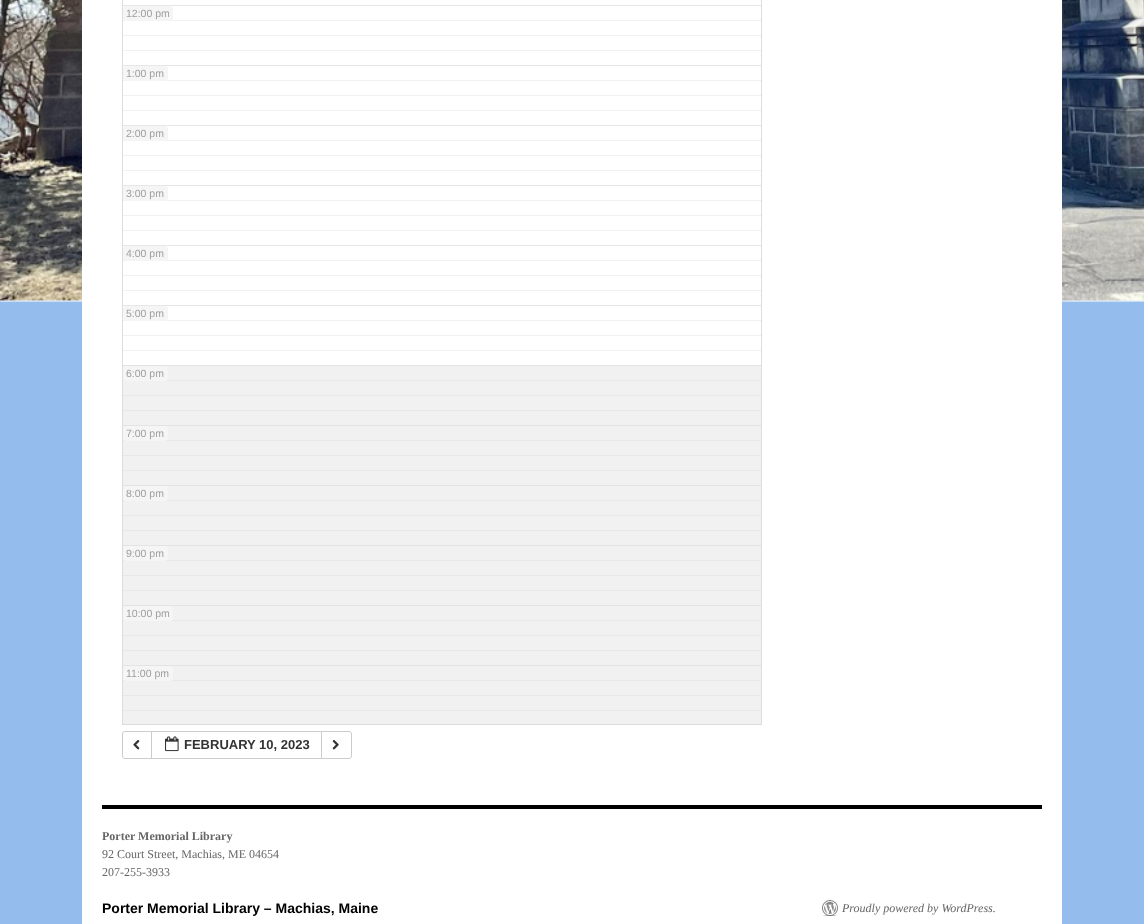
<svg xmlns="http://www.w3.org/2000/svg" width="1144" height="924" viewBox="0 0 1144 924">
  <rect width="100%" height="100%" fill="#ffffff"/>
  <image x="0" y="0" width="1144" height="924" href="img1.png"/>
  <rect x="82" y="0" width="980" height="924" fill="#ffffff"/>
  <rect x="122" y="724" width="640" height="1" fill="#dddddd"/>
  <rect x="761" y="0" width="1" height="724" fill="#dddddd"/>
  <rect x="122" y="0" width="1" height="724" fill="#dddddd"/>
  <rect x="122" y="5" width="640" height="1" fill="#dddddd" fill-opacity="0.7"/>
  <rect x="122" y="20" width="640" height="1" fill="#dddddd" fill-opacity="0.4"/>
  <rect x="123" y="6" width="50" height="15" rx="3" fill="#f5f5f5"/>
  <text x="126" y="17" font-family="Liberation Sans" font-size="10.5" fill="#9e9e9e">12:00 pm</text>
  <rect x="122" y="35" width="640" height="1" fill="#dddddd" fill-opacity="0.4"/>
  <rect x="122" y="50" width="640" height="1" fill="#dddddd" fill-opacity="0.4"/>
  <rect x="122" y="65" width="640" height="1" fill="#dddddd" fill-opacity="0.7"/>
  <rect x="122" y="80" width="640" height="1" fill="#dddddd" fill-opacity="0.4"/>
  <rect x="123" y="66" width="45" height="15" rx="3" fill="#f5f5f5"/>
  <text x="126" y="77" font-family="Liberation Sans" font-size="10.5" fill="#9e9e9e">1:00 pm</text>
  <rect x="122" y="95" width="640" height="1" fill="#dddddd" fill-opacity="0.4"/>
  <rect x="122" y="110" width="640" height="1" fill="#dddddd" fill-opacity="0.4"/>
  <rect x="122" y="125" width="640" height="1" fill="#dddddd" fill-opacity="0.7"/>
  <rect x="122" y="140" width="640" height="1" fill="#dddddd" fill-opacity="0.4"/>
  <rect x="123" y="126" width="45" height="15" rx="3" fill="#f5f5f5"/>
  <text x="126" y="137" font-family="Liberation Sans" font-size="10.5" fill="#9e9e9e">2:00 pm</text>
  <rect x="122" y="155" width="640" height="1" fill="#dddddd" fill-opacity="0.4"/>
  <rect x="122" y="170" width="640" height="1" fill="#dddddd" fill-opacity="0.4"/>
  <rect x="122" y="185" width="640" height="1" fill="#dddddd" fill-opacity="0.7"/>
  <rect x="122" y="200" width="640" height="1" fill="#dddddd" fill-opacity="0.4"/>
  <rect x="123" y="186" width="45" height="15" rx="3" fill="#f5f5f5"/>
  <text x="126" y="197" font-family="Liberation Sans" font-size="10.5" fill="#9e9e9e">3:00 pm</text>
  <rect x="122" y="215" width="640" height="1" fill="#dddddd" fill-opacity="0.4"/>
  <rect x="122" y="230" width="640" height="1" fill="#dddddd" fill-opacity="0.4"/>
  <rect x="122" y="245" width="640" height="1" fill="#dddddd" fill-opacity="0.7"/>
  <rect x="122" y="260" width="640" height="1" fill="#dddddd" fill-opacity="0.4"/>
  <rect x="123" y="246" width="45" height="15" rx="3" fill="#f5f5f5"/>
  <text x="126" y="257" font-family="Liberation Sans" font-size="10.5" fill="#9e9e9e">4:00 pm</text>
  <rect x="122" y="275" width="640" height="1" fill="#dddddd" fill-opacity="0.4"/>
  <rect x="122" y="290" width="640" height="1" fill="#dddddd" fill-opacity="0.4"/>
  <rect x="122" y="305" width="640" height="1" fill="#dddddd" fill-opacity="0.7"/>
  <rect x="122" y="320" width="640" height="1" fill="#dddddd" fill-opacity="0.4"/>
  <rect x="123" y="306" width="45" height="15" rx="3" fill="#f5f5f5"/>
  <text x="126" y="317" font-family="Liberation Sans" font-size="10.5" fill="#9e9e9e">5:00 pm</text>
  <rect x="122" y="335" width="640" height="1" fill="#dddddd" fill-opacity="0.4"/>
  <rect x="122" y="350" width="640" height="1" fill="#dddddd" fill-opacity="0.4"/>
  <rect x="123" y="365" width="638" height="60" fill="#dddddd" fill-opacity="0.4"/>
  <rect x="122" y="365" width="640" height="1" fill="#dddddd" fill-opacity="0.7"/>
  <rect x="122" y="380" width="640" height="1" fill="#dddddd" fill-opacity="0.4"/>
  <rect x="123" y="366" width="45" height="15" rx="3" fill="#f5f5f5"/>
  <text x="126" y="377" font-family="Liberation Sans" font-size="10.5" fill="#9e9e9e">6:00 pm</text>
  <rect x="122" y="395" width="640" height="1" fill="#dddddd" fill-opacity="0.4"/>
  <rect x="122" y="410" width="640" height="1" fill="#dddddd" fill-opacity="0.4"/>
  <rect x="123" y="425" width="638" height="60" fill="#dddddd" fill-opacity="0.4"/>
  <rect x="122" y="425" width="640" height="1" fill="#dddddd" fill-opacity="0.7"/>
  <rect x="122" y="440" width="640" height="1" fill="#dddddd" fill-opacity="0.4"/>
  <rect x="123" y="426" width="45" height="15" rx="3" fill="#f5f5f5"/>
  <text x="126" y="437" font-family="Liberation Sans" font-size="10.5" fill="#9e9e9e">7:00 pm</text>
  <rect x="122" y="455" width="640" height="1" fill="#dddddd" fill-opacity="0.4"/>
  <rect x="122" y="470" width="640" height="1" fill="#dddddd" fill-opacity="0.4"/>
  <rect x="123" y="485" width="638" height="60" fill="#dddddd" fill-opacity="0.4"/>
  <rect x="122" y="485" width="640" height="1" fill="#dddddd" fill-opacity="0.7"/>
  <rect x="122" y="500" width="640" height="1" fill="#dddddd" fill-opacity="0.4"/>
  <rect x="123" y="486" width="45" height="15" rx="3" fill="#f5f5f5"/>
  <text x="126" y="497" font-family="Liberation Sans" font-size="10.5" fill="#9e9e9e">8:00 pm</text>
  <rect x="122" y="515" width="640" height="1" fill="#dddddd" fill-opacity="0.4"/>
  <rect x="122" y="530" width="640" height="1" fill="#dddddd" fill-opacity="0.4"/>
  <rect x="123" y="545" width="638" height="60" fill="#dddddd" fill-opacity="0.4"/>
  <rect x="122" y="545" width="640" height="1" fill="#dddddd" fill-opacity="0.7"/>
  <rect x="122" y="560" width="640" height="1" fill="#dddddd" fill-opacity="0.4"/>
  <rect x="123" y="546" width="45" height="15" rx="3" fill="#f5f5f5"/>
  <text x="126" y="557" font-family="Liberation Sans" font-size="10.5" fill="#9e9e9e">9:00 pm</text>
  <rect x="122" y="575" width="640" height="1" fill="#dddddd" fill-opacity="0.4"/>
  <rect x="122" y="590" width="640" height="1" fill="#dddddd" fill-opacity="0.4"/>
  <rect x="123" y="605" width="638" height="60" fill="#dddddd" fill-opacity="0.4"/>
  <rect x="122" y="605" width="640" height="1" fill="#dddddd" fill-opacity="0.7"/>
  <rect x="122" y="620" width="640" height="1" fill="#dddddd" fill-opacity="0.4"/>
  <rect x="123" y="606" width="50" height="15" rx="3" fill="#f5f5f5"/>
  <text x="126" y="617" font-family="Liberation Sans" font-size="10.5" fill="#9e9e9e">10:00 pm</text>
  <rect x="122" y="635" width="640" height="1" fill="#dddddd" fill-opacity="0.4"/>
  <rect x="122" y="650" width="640" height="1" fill="#dddddd" fill-opacity="0.4"/>
  <rect x="123" y="665" width="638" height="59" fill="#dddddd" fill-opacity="0.4"/>
  <rect x="122" y="665" width="640" height="1" fill="#dddddd" fill-opacity="0.7"/>
  <rect x="122" y="680" width="640" height="1" fill="#dddddd" fill-opacity="0.4"/>
  <rect x="123" y="666" width="50" height="15" rx="3" fill="#f5f5f5"/>
  <text x="126" y="677" font-family="Liberation Sans" font-size="10.5" fill="#9e9e9e">11:00 pm</text>
  <rect x="122" y="695" width="640" height="1" fill="#dddddd" fill-opacity="0.4"/>
  <rect x="122" y="710" width="640" height="1" fill="#dddddd" fill-opacity="0.4"/>
  <path d="M125 731.5H151.5V758.5H125C123.5 758.5 122.5 757.5 122.5 756V734C122.5 732.5 123.5 731.5 125 731.5Z" fill="none" stroke="#cccccc"/>
  <image x="133" y="740" width="7" height="10" href="img2.png"/>
  <rect x="151.5" y="731.5" width="170" height="27" fill="none" stroke="#cccccc"/>
  <image x="165" y="736" width="14" height="16" href="img3.png"/>
  <text x="184" y="749" font-family="Liberation Sans" font-size="13" font-weight="bold" fill="#333333">FEBRUARY 10, 2023</text>
  <path d="M321.5 731.5H349C350.5 731.5 351.5 732.5 351.5 734V756C351.5 757.5 350.5 758.5 349 758.5H321.5Z" fill="#ffffff" stroke="#cccccc"/>
  <image x="332" y="740" width="7" height="10" href="img4.png"/>
  <rect x="102" y="805" width="940" height="4" fill="#000000"/>
  <text x="102" y="840" font-family="Liberation Serif" font-size="12" font-weight="bold" fill="#666666">Porter Memorial Library</text>
  <text x="102" y="858" font-family="Liberation Serif" font-size="12" fill="#666666">92 Court Street, Machias, ME 04654</text>
  <text x="102" y="876" font-family="Liberation Serif" font-size="12" fill="#666666">207-255-3933</text>
  <text x="102" y="913" font-family="Liberation Sans" font-size="14" font-weight="bold" fill="#000000">Porter Memorial Library – Machias, Maine</text>
  <image x="822" y="900" width="16" height="16" href="img5.png"/>
  <text x="842" y="912" font-family="Liberation Serif" font-size="12" font-style="italic" fill="#666666">Proudly powered by WordPress.</text>
</svg>
